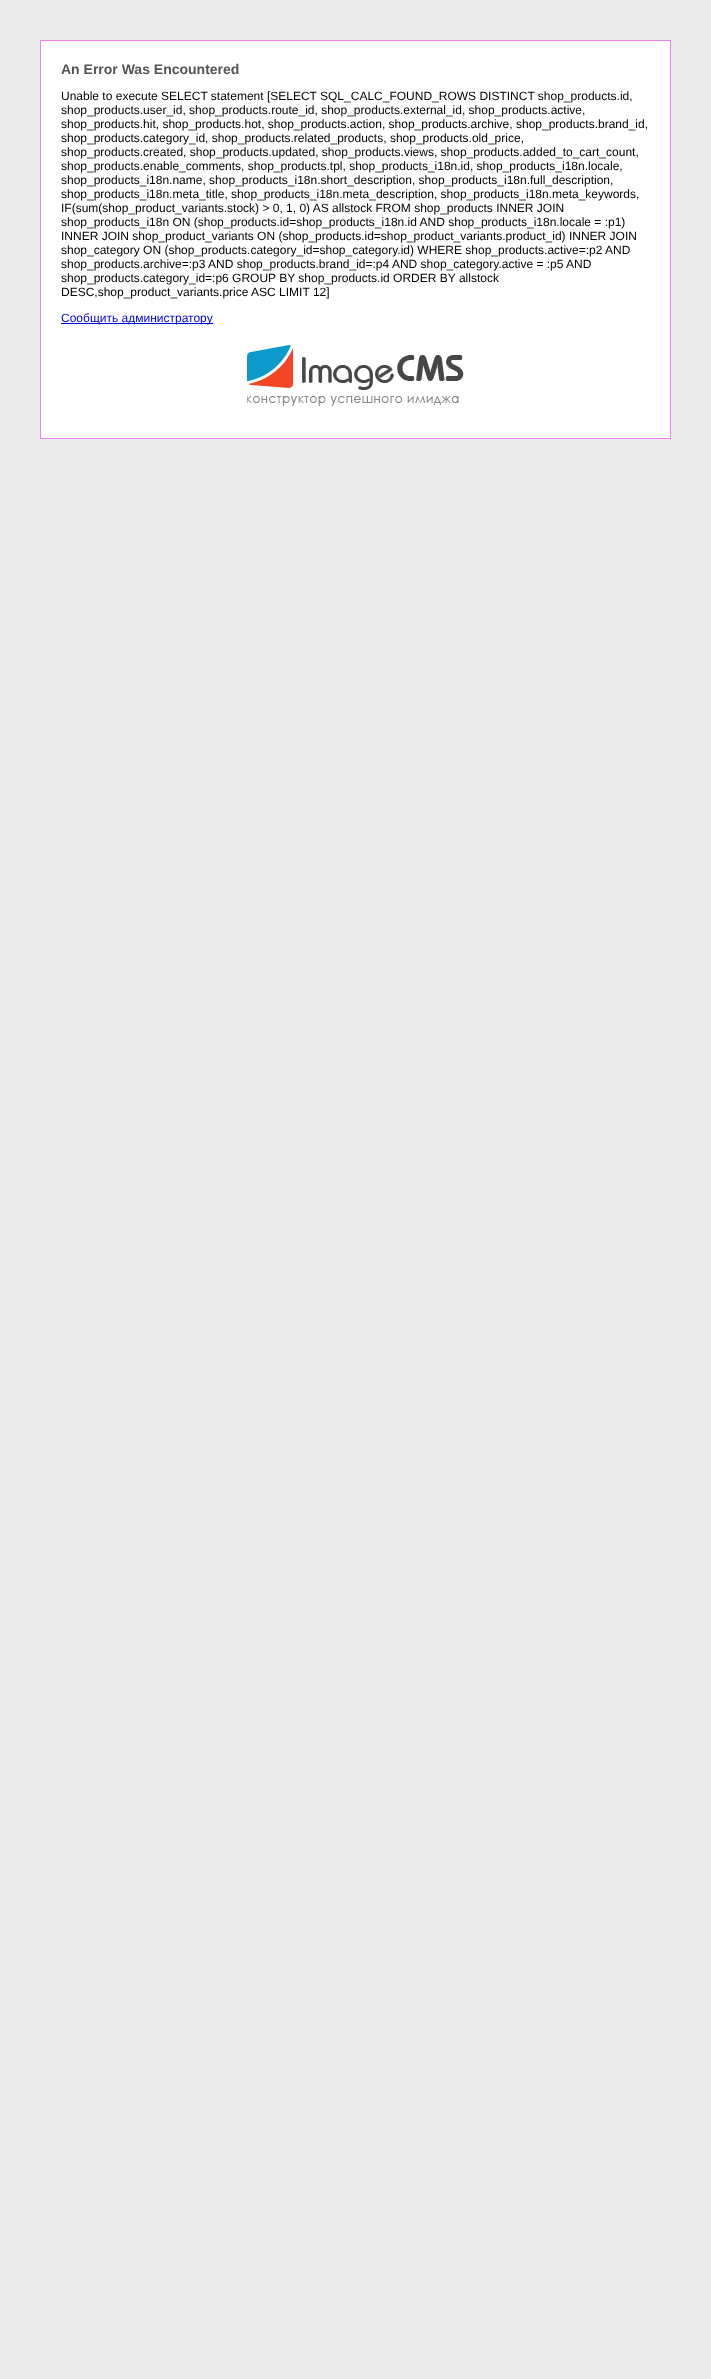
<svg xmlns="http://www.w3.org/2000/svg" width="711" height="2379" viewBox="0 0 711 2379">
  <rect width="100%" height="100%" fill="#ebebeb"/>
  <rect x="40.5" y="40.5" width="630" height="398" fill="#ffffff" stroke="#ee82ee"/>
  <text x="61" y="74" font-family="Liberation Sans" font-size="14" font-weight="bold" fill="#545454">An Error Was Encountered</text>
  <text x="61" y="100" font-family="Liberation Sans" font-size="12" fill="#000000">Unable to execute SELECT statement [SELECT SQL_CALC_FOUND_ROWS DISTINCT shop_products.id,</text>
  <text x="61" y="114" font-family="Liberation Sans" font-size="12" fill="#000000">shop_products.user_id, shop_products.route_id, shop_products.external_id, shop_products.active,</text>
  <text x="61" y="128" font-family="Liberation Sans" font-size="12" fill="#000000">shop_products.hit, shop_products.hot, shop_products.action, shop_products.archive, shop_products.brand_id,</text>
  <text x="61" y="142" font-family="Liberation Sans" font-size="12" fill="#000000">shop_products.category_id, shop_products.related_products, shop_products.old_price,</text>
  <text x="61" y="156" font-family="Liberation Sans" font-size="12" fill="#000000">shop_products.created, shop_products.updated, shop_products.views, shop_products.added_to_cart_count,</text>
  <text x="61" y="170" font-family="Liberation Sans" font-size="12" fill="#000000">shop_products.enable_comments, shop_products.tpl, shop_products_i18n.id, shop_products_i18n.locale,</text>
  <text x="61" y="184" font-family="Liberation Sans" font-size="12" fill="#000000">shop_products_i18n.name, shop_products_i18n.short_description, shop_products_i18n.full_description,</text>
  <text x="61" y="198" font-family="Liberation Sans" font-size="12" fill="#000000">shop_products_i18n.meta_title, shop_products_i18n.meta_description, shop_products_i18n.meta_keywords,</text>
  <text x="61" y="212" font-family="Liberation Sans" font-size="12" fill="#000000">IF(sum(shop_product_variants.stock) &gt; 0, 1, 0) AS allstock FROM shop_products INNER JOIN</text>
  <text x="61" y="226" font-family="Liberation Sans" font-size="12" fill="#000000">shop_products_i18n ON (shop_products.id=shop_products_i18n.id AND shop_products_i18n.locale = :p1)</text>
  <text x="61" y="240" font-family="Liberation Sans" font-size="12" fill="#000000">INNER JOIN shop_product_variants ON (shop_products.id=shop_product_variants.product_id) INNER JOIN</text>
  <text x="61" y="254" font-family="Liberation Sans" font-size="12" fill="#000000">shop_category ON (shop_products.category_id=shop_category.id) WHERE shop_products.active=:p2 AND</text>
  <text x="61" y="268" font-family="Liberation Sans" font-size="12" fill="#000000">shop_products.archive=:p3 AND shop_products.brand_id=:p4 AND shop_category.active = :p5 AND</text>
  <text x="61" y="282" font-family="Liberation Sans" font-size="12" fill="#000000">shop_products.category_id=:p6 GROUP BY shop_products.id ORDER BY allstock</text>
  <text x="61" y="296" font-family="Liberation Sans" font-size="12" fill="#000000">DESC,shop_product_variants.price ASC LIMIT 12]</text>
  <rect x="61" y="323" width="152" height="1" fill="#0000ee"/>
  <text x="61" y="322" font-family="Liberation Sans" font-size="12" fill="#0000ee">Сообщить администратору</text>
  <image x="247" y="345" width="217" height="61" href="img1.png"/>
</svg>
